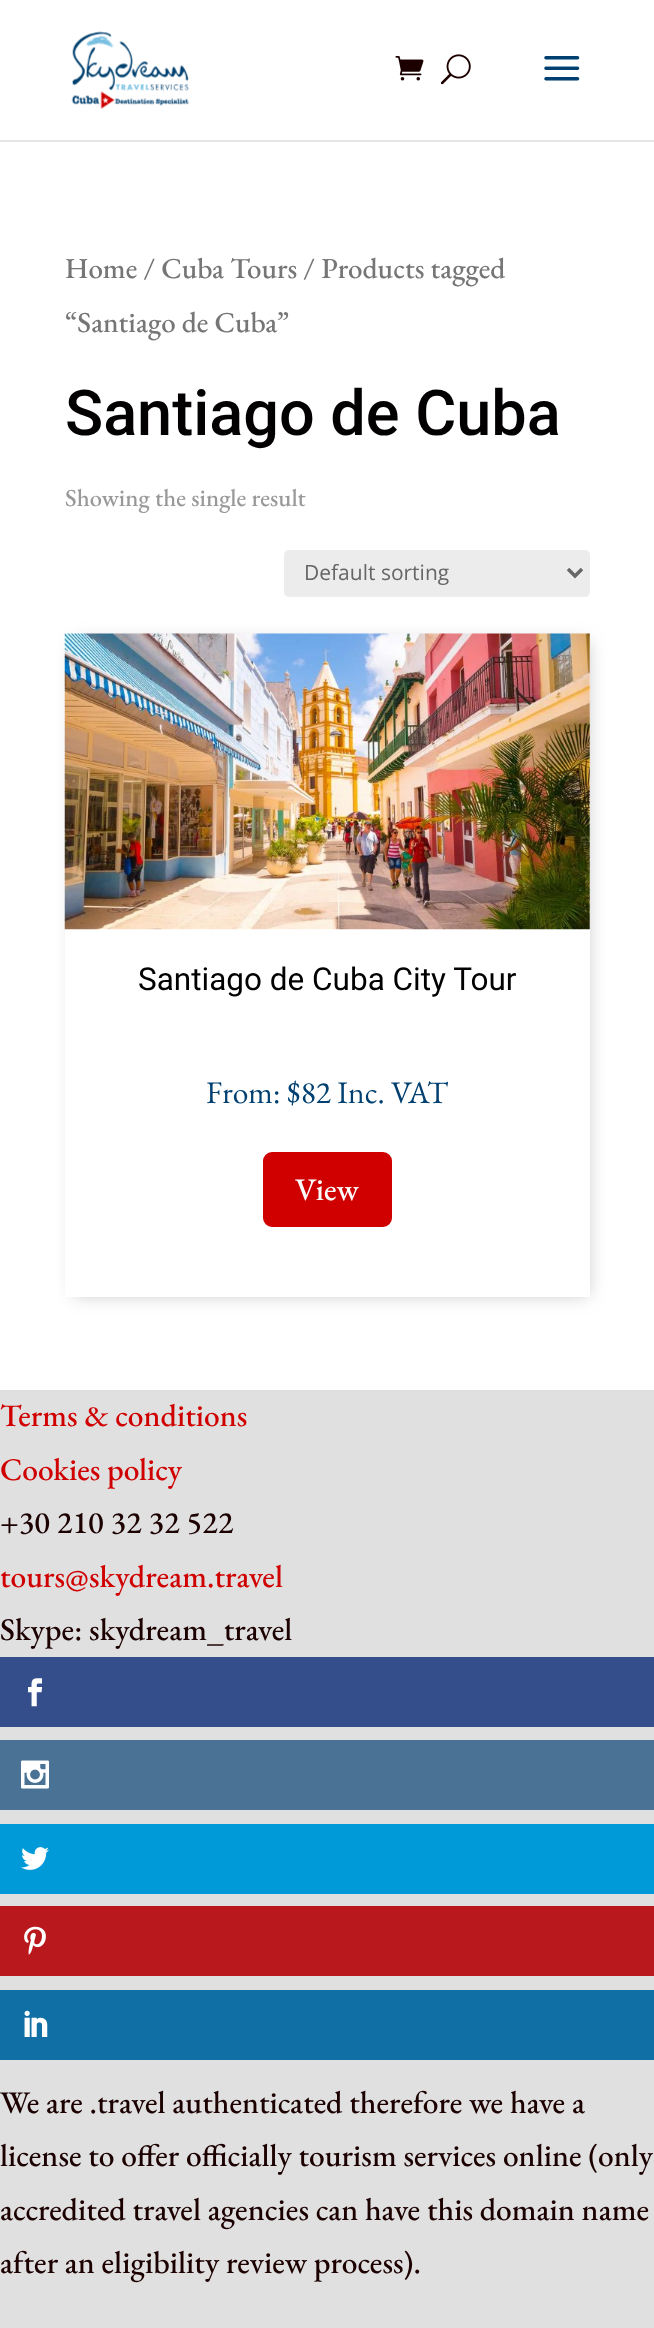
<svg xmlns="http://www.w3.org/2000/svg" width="654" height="2328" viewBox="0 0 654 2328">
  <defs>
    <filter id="blur1" x="-50%" y="-200%" width="200%" height="500%"><feGaussianBlur stdDeviation="9"/></filter>
  </defs>
  <rect width="100%" height="100%" fill="#ffffff"/>
  <path d="M0 140V142H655V2H654V140Z" fill="#e6e6e6"/>
  <image x="71" y="31" width="118" height="78" href="img1.png"/>
  <image x="395" y="56" width="29" height="25" href="img2.png"/>
  <image x="440" y="54" width="31" height="31" href="img3.png"/>
  <image x="544" y="56" width="36" height="25" href="img4.png"/>
  <text x="65" y="278" font-family="EB Garamond" font-size="29" font-weight="500" fill="#767676">Home / Cuba Tours / Products tagged</text>
  <text x="65" y="332" font-family="EB Garamond" font-size="29" font-weight="500" fill="#767676">“Santiago de Cuba”</text>
  <text x="65" y="435" font-family="Roboto" font-size="63" font-weight="500" fill="#020000">Santiago de Cuba</text>
  <text x="65" y="506" font-family="EB Garamond" font-size="24.5" font-weight="500" fill="#999999">Showing the single result</text>
  <rect x="284" y="550" width="306" height="47" rx="5" fill="#ececec"/>
  <path d="M568 569L575 576L582 569" fill="none" stroke="#666666" stroke-width="3.5"/>
  <text x="304" y="580" font-family="Open Sans" font-size="21" fill="#666666">Default sorting</text>
  <rect x="74" y="642" width="514" height="653" fill="#adadad" fill-opacity="0.72" filter="url(#blur1)"/>
  <rect x="65" y="634" width="525" height="663" fill="#ffffff"/>
  <image x="64" y="633" width="526" height="297" href="img5.png"/>
  <text x="138" y="990" font-family="Roboto" font-size="31.5" fill="#020000">Santiago de Cuba City Tour</text>
  <text x="206" y="1103" font-family="EB Garamond" font-size="31.5" fill="#004071">From: $82 Inc. VAT</text>
  <rect x="264" y="1153" width="127" height="73" rx="8" fill="#d00000" stroke="#d00000" stroke-width="2"/>
  <text x="295" y="1200" font-family="EB Garamond" font-size="31.5" font-weight="500" fill="#fcfcfc">View</text>
  <rect x="0" y="1390" width="654" height="938" fill="#e0e0e0"/>
  <text x="0" y="1426" font-family="EB Garamond" font-size="31.5" font-weight="500" fill="#d00000">Terms &amp; conditions</text>
  <text x="0" y="1480" font-family="EB Garamond" font-size="31.5" font-weight="500" fill="#d00000">Cookies policy</text>
  <text x="0" y="1533" font-family="EB Garamond" font-size="31.5" font-weight="500" fill="#1c0000">+30 210 32 32 522</text>
  <text x="0" y="1587" font-family="EB Garamond" font-size="31.5" font-weight="500" fill="#d00000">tours@skydream.travel</text>
  <text x="0" y="1640" font-family="EB Garamond" font-size="31.5" font-weight="500" fill="#1c0000">Skype: skydream_travel</text>
  <rect x="0" y="1657" width="654" height="70" fill="#344e8b"/>
  <image x="28" y="1678" width="15" height="29" href="img6.png"/>
  <rect x="0" y="1740" width="654" height="70" fill="#497294"/>
  <image x="21" y="1760" width="28" height="29" href="img7.png"/>
  <rect x="0" y="1824" width="654" height="70" fill="#009ad8"/>
  <image x="21" y="1847" width="28" height="23" href="img8.png"/>
  <rect x="0" y="1906" width="654" height="70" fill="#b9191c"/>
  <image x="24" y="1926" width="22" height="29" href="img9.png"/>
  <rect x="0" y="1990" width="654" height="70" fill="#106fa4"/>
  <image x="24" y="2010" width="24" height="27" href="img10.png"/>
  <text x="0" y="2113" font-family="EB Garamond" font-size="31.5" font-weight="500" fill="#1c0000">We are .travel authenticated therefore we have a</text>
  <text x="0" y="2166" font-family="EB Garamond" font-size="31.5" font-weight="500" fill="#1c0000">license to offer officially tourism services online (only</text>
  <text x="0" y="2220" font-family="EB Garamond" font-size="31.5" font-weight="500" fill="#1c0000">accredited travel agencies can have this domain name</text>
  <text x="0" y="2273" font-family="EB Garamond" font-size="31.5" font-weight="500" fill="#1c0000">after an eligibility review process).</text>
</svg>
